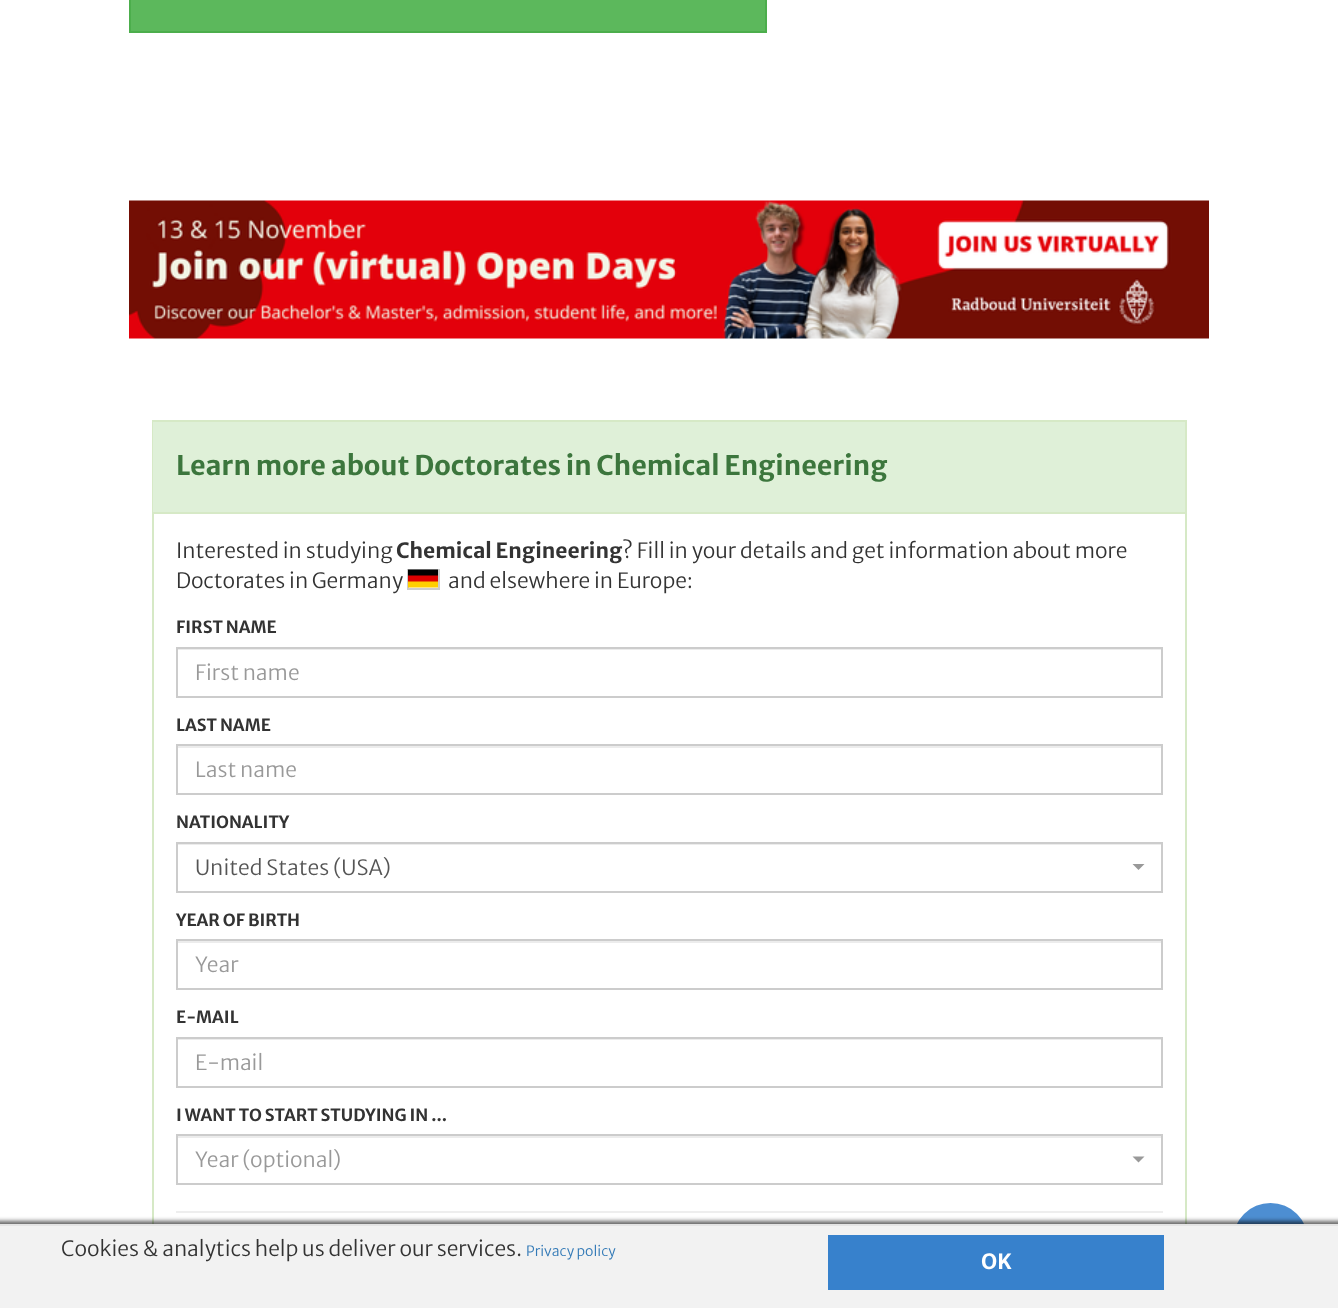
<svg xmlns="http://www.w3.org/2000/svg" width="1338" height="1308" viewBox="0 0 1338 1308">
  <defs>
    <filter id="blur1" x="-50%" y="-200%" width="200%" height="500%"><feGaussianBlur stdDeviation="2"/></filter>
  </defs>
  <rect width="100%" height="100%" fill="#ffffff"/>
  <rect x="130" y="-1" width="636" height="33" fill="#5cb85c" stroke="#4cae4c" stroke-width="2"/>
  <image x="129" y="200" width="1080" height="139" href="img1.png"/>
  <rect x="153" y="421" width="1033" height="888" fill="none" stroke="#d6e9c6" stroke-width="2"/>
  <rect x="153" y="422" width="1032" height="90" fill="#dff0d8"/>
  <rect x="153" y="512" width="1032" height="2" fill="#d6e9c6"/>
  <text x="176" y="475" font-family="Merriweather Sans" font-size="27" font-weight="bold" fill="#3c763d">Learn more about Doctorates in Chemical Engineering</text>
  <text x="176" y="558" font-family="Merriweather Sans" font-size="21" font-weight="300" fill="#333333">Interested in studying</text>
  <text x="396" y="558" font-family="Merriweather Sans" font-size="21" font-weight="bold" fill="#333333">Chemical Engineering</text>
  <text x="622" y="558" font-family="Merriweather Sans" font-size="21" font-weight="300" fill="#333333">? Fill in your details and get information about more</text>
  <rect x="408" y="570" width="31" height="19" fill="none" stroke="#cccccc" stroke-width="2"/>
  <text x="176" y="588" font-family="Merriweather Sans" font-size="21" font-weight="300" fill="#333333">Doctorates in Germany</text>
  <image x="408" y="569" width="30" height="19" href="img2.png"/>
  <text x="448" y="588" font-family="Merriweather Sans" font-size="21" font-weight="300" fill="#333333">and elsewhere in Europe:</text>
  <text x="176" y="633" font-family="Merriweather Sans" font-size="16.75" font-weight="bold" fill="#333333">FIRST NAME</text>
  <rect x="177" y="649" width="984" height="1" fill="#ececec"/>
  <rect x="177" y="648" width="985" height="49" fill="none" stroke="#cccccc" stroke-width="2"/>
  <text x="195" y="680" font-family="Merriweather Sans" font-size="21" font-weight="300" fill="#999999">First name</text>
  <text x="176" y="731" font-family="Merriweather Sans" font-size="16.75" font-weight="bold" fill="#333333">LAST NAME</text>
  <rect x="177" y="746" width="984" height="2" fill="#ececec"/>
  <rect x="177" y="745" width="985" height="49" fill="none" stroke="#cccccc" stroke-width="2"/>
  <text x="195" y="777" font-family="Merriweather Sans" font-size="21" font-weight="300" fill="#999999">Last name</text>
  <text x="176" y="828" font-family="Merriweather Sans" font-size="16.75" font-weight="bold" fill="#333333">NATIONALITY</text>
  <rect x="177" y="844" width="984" height="1" fill="#ececec"/>
  <rect x="177" y="843" width="985" height="49" fill="none" stroke="#cccccc" stroke-width="2"/>
  <text x="195" y="875" font-family="Merriweather Sans" font-size="21" font-weight="300" fill="#555555">United States (USA)</text>
  <path d="M1132.5 864H1144.5L1138.5 870Z" fill="#999999"/>
  <text x="176" y="926" font-family="Merriweather Sans" font-size="16.75" font-weight="bold" fill="#333333">YEAR OF BIRTH</text>
  <rect x="177" y="941" width="984" height="2" fill="#ececec"/>
  <rect x="177" y="940" width="985" height="49" fill="none" stroke="#cccccc" stroke-width="2"/>
  <text x="195" y="972" font-family="Merriweather Sans" font-size="21" font-weight="300" fill="#999999">Year</text>
  <text x="176" y="1023" font-family="Merriweather Sans" font-size="16.75" font-weight="bold" fill="#333333">E-MAIL</text>
  <rect x="177" y="1039" width="984" height="1" fill="#ececec"/>
  <rect x="177" y="1038" width="985" height="49" fill="none" stroke="#cccccc" stroke-width="2"/>
  <text x="195" y="1070" font-family="Merriweather Sans" font-size="21" font-weight="300" fill="#999999">E-mail</text>
  <text x="176" y="1121" font-family="Merriweather Sans" font-size="16.75" font-weight="bold" fill="#333333">I WANT TO START STUDYING IN ...</text>
  <rect x="177" y="1136" width="984" height="2" fill="#ececec"/>
  <rect x="177" y="1135" width="985" height="49" fill="none" stroke="#cccccc" stroke-width="2"/>
  <text x="195" y="1167" font-family="Merriweather Sans" font-size="21" font-weight="300" fill="#999999">Year (optional)</text>
  <path d="M1132.5 1156.5H1144.5L1138.5 1162.5Z" fill="#999999"/>
  <rect x="176" y="1211" width="987" height="2" fill="#eeeeee"/>
  <circle cx="1270.5" cy="1240.5" r="37.5" fill="#4d8ed2"/>
  <rect x="-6" y="1221" width="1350" height="84" fill="#000000" fill-opacity="0.6" filter="url(#blur1)"/>
  <rect x="0" y="1226" width="1338" height="82" fill="#f2f2f2"/>
  <rect x="0" y="1224" width="1338" height="2" fill="#e4e4e4"/>
  <text x="61" y="1256" font-family="Merriweather Sans" font-size="21" font-weight="300" fill="#333333">Cookies &amp; analytics help us deliver our services.</text>
  <text x="526" y="1256" font-family="Merriweather Sans" font-size="14" font-weight="300" fill="#337ab7">Privacy policy</text>
  <rect x="828" y="1235" width="336" height="55" fill="#3781cc"/>
  <text x="981" y="1269" font-family="Merriweather Sans" font-size="21" font-weight="bold" fill="#ffffff">OK</text>
</svg>
